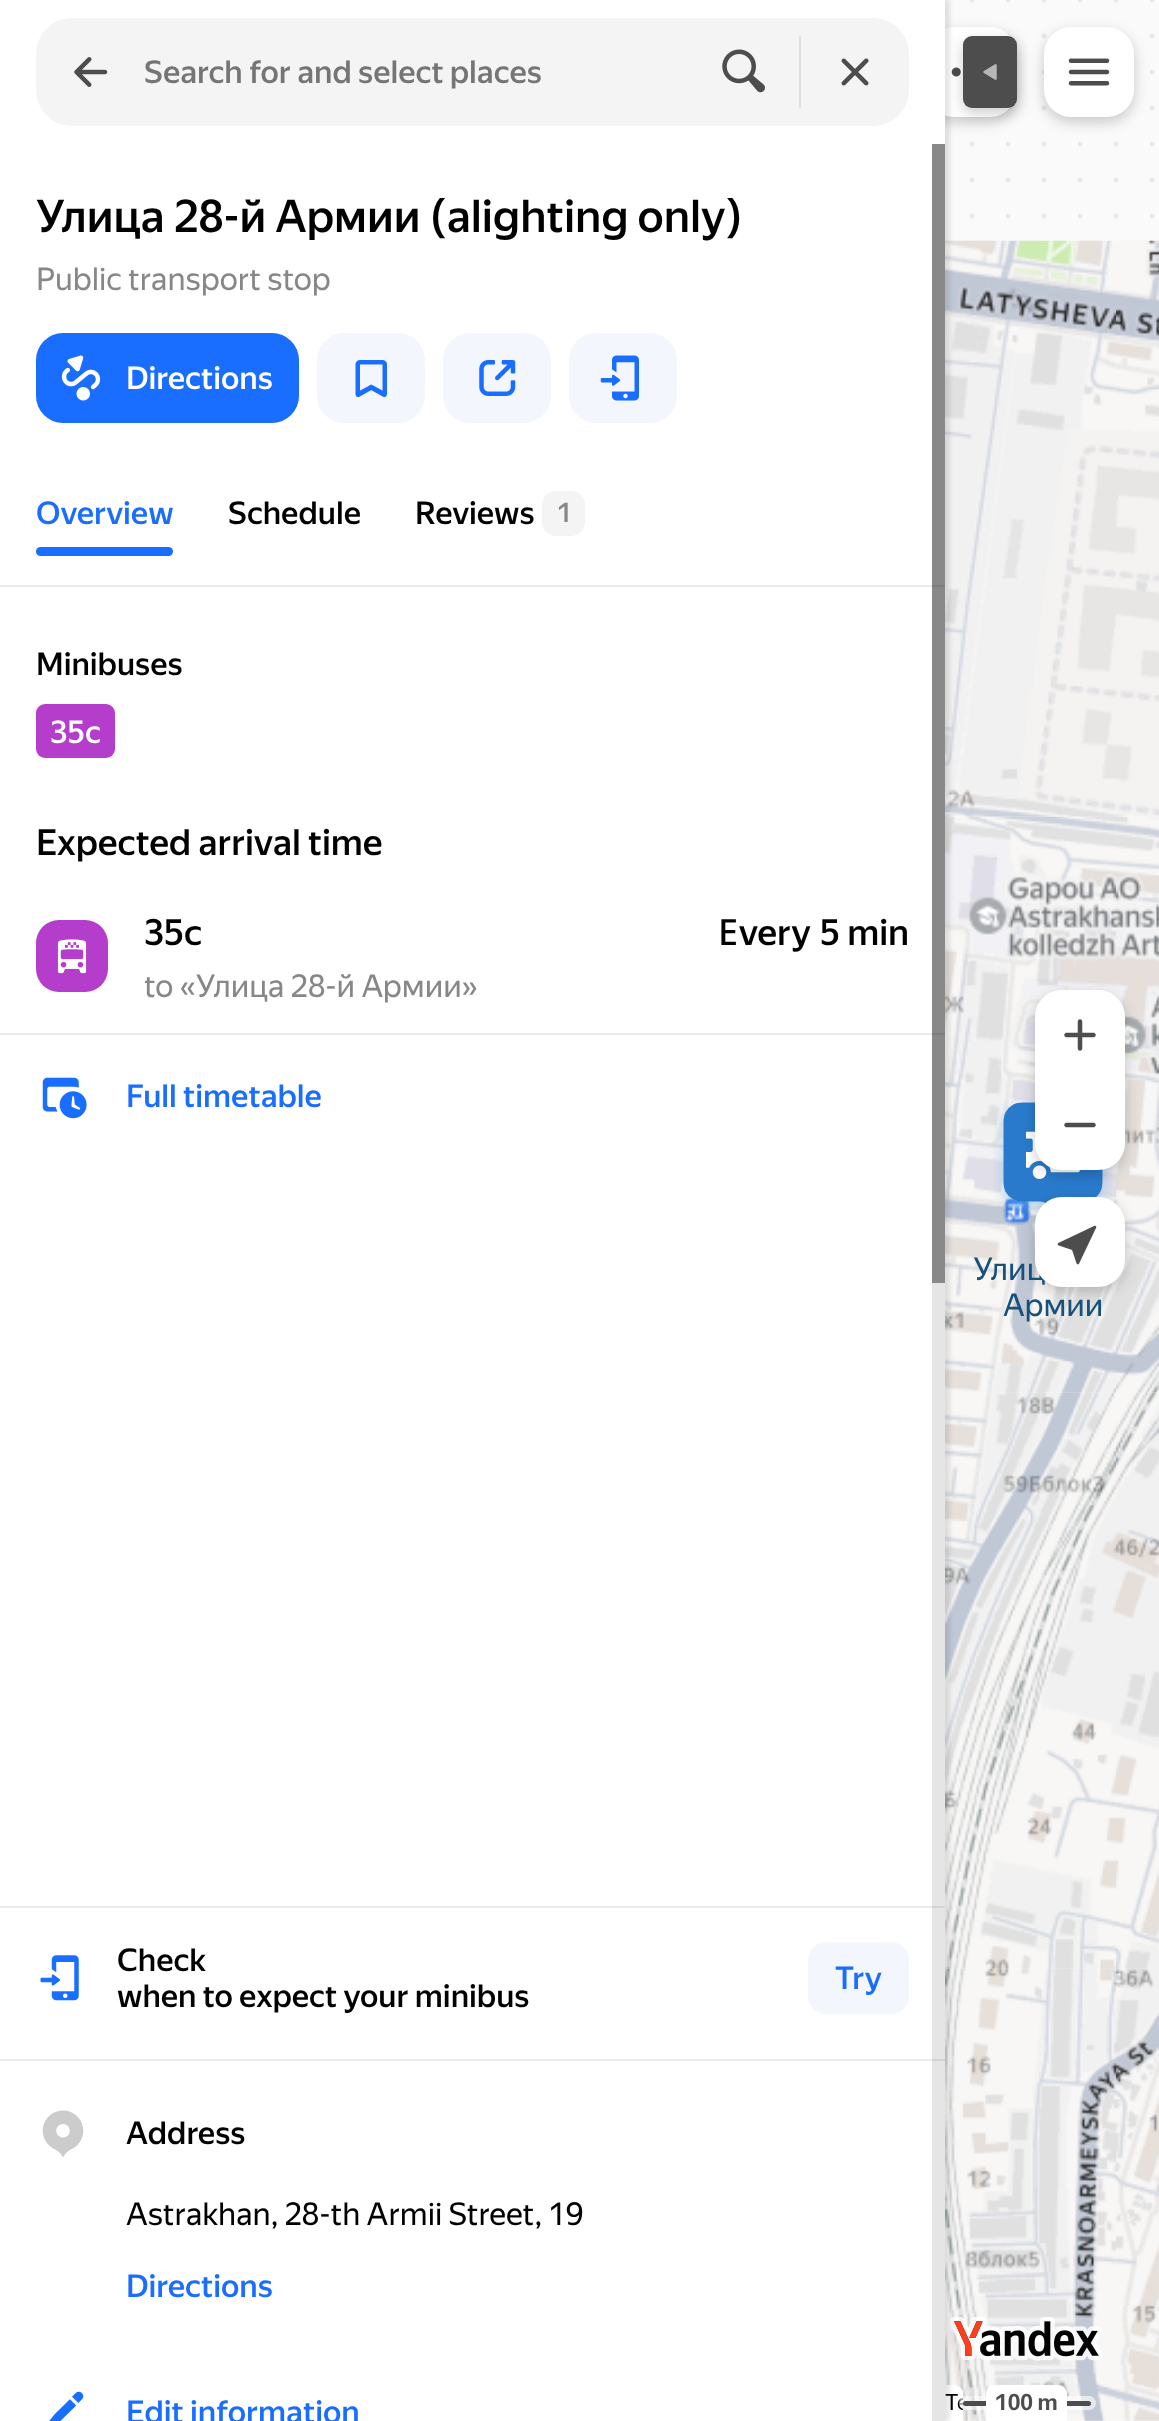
<svg xmlns="http://www.w3.org/2000/svg" width="1159" height="2421" viewBox="0 0 1159 2421">
  <defs>
    <filter id="blur1" x="-50%" y="-200%" width="200%" height="500%"><feGaussianBlur stdDeviation="7"/></filter>
    <filter id="blur2" x="-50%" y="-200%" width="200%" height="500%"><feGaussianBlur stdDeviation="2"/></filter>
    <clipPath id="clip1"><path d="M936 2385H954C959 2385 963 2389 963 2394V2421H927V2394C927 2389 931 2385 936 2385Z"/></clipPath>
  </defs>
  <rect width="100%" height="100%" fill="#ffffff"/>
  <image x="945" y="0" width="214" height="2421" href="img1.png"/>
  <rect x="927" y="32" width="90" height="90" rx="27" fill="#000000" fill-opacity="0.2" filter="url(#blur1)"/>
  <rect x="927" y="27" width="90" height="90" rx="27" fill="#ffffff"/>
  <image x="951" y="67" width="10" height="10" href="img5.png"/>
  <image x="945" y="240" width="171" height="577" href="img21.png"/>
  <image x="945" y="816" width="171" height="577" href="img23.png"/>
  <image x="945" y="1392" width="171" height="577" href="img25.png"/>
  <image x="945" y="1968" width="171" height="453" href="img27.png"/>
  <image x="950" y="2316" width="153" height="45" href="img20.png"/>
  <path d="M936 2385H954C959 2385 963 2389 963 2394V2421H927V2394C927 2389 931 2385 936 2385Z" fill="#ffffff"/>
  <rect x="5" y="0" width="945" height="2421" fill="#000000" fill-opacity="0.1" filter="url(#blur2)"/>
  <rect x="963" y="41" width="54" height="72" rx="9" fill="#000000" fill-opacity="0.2" filter="url(#blur1)"/>
  <rect x="2" y="0" width="943" height="2421" fill="#ffffff"/>
  <rect x="36" y="18" width="873" height="108" rx="36" fill="#f4f4f4"/>
  <image x="74" y="57" width="34" height="30" href="img2.png"/>
  <text x="144" y="83" font-family="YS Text" font-size="31.5" font-weight="500" fill="#757575">Search for and select places</text>
  <image x="722" y="49" width="43" height="44" href="img3.png"/>
  <rect x="799" y="36" width="2" height="72" fill="#e0e0e0"/>
  <image x="841" y="58" width="28" height="28" href="img4.png"/>
  <rect x="1044" y="32" width="90" height="90" rx="27" fill="#000000" fill-opacity="0.2" filter="url(#blur1)"/>
  <rect x="1044" y="27" width="90" height="90" rx="27" fill="#ffffff"/>
  <image x="1068" y="58" width="42" height="28" href="img6.png"/>
  <image x="1116" y="816" width="43" height="577" href="img24.png"/>
  <image x="993" y="1098" width="119" height="120" href="img29.png"/>
  <image x="1026" y="1131" width="54" height="48" href="img30.png"/>
  <rect x="1035" y="995" width="90" height="180" rx="27" fill="#000000" fill-opacity="0.2" filter="url(#blur1)"/>
  <path d="M1062 990H1098C1113 990 1125 1002 1125 1017V1080H1035V1017C1035 1002 1047 990 1062 990Z" fill="#ffffff"/>
  <image x="1064" y="1019" width="32" height="32" href="img7.png"/>
  <path d="M1035 1080H1125V1143C1125 1158 1113 1170 1098 1170H1062C1047 1170 1035 1158 1035 1143Z" fill="#ffffff"/>
  <image x="1064" y="1122" width="32" height="6" href="img8.png"/>
  <rect x="1035" y="1202" width="90" height="90" rx="27" fill="#000000" fill-opacity="0.2" filter="url(#blur1)"/>
  <text x="973" y="1280" font-family="YS Text" font-size="31.5" fill="#175078">Улиц</text>
  <rect x="1035" y="1197" width="90" height="90" rx="27" fill="#ffffff"/>
  <image x="1057" y="1225" width="40" height="40" href="img9.png"/>
  <rect x="963" y="36" width="54" height="72" rx="9" fill="#4d4d4d"/>
  <image x="983" y="64" width="14" height="16" href="img10.png"/>
  <text x="36" y="232" font-family="YS Text" font-size="45" font-weight="500" fill="#000000">Улица 28-й Армии (alighting only)</text>
  <text x="36" y="290" font-family="YS Text" font-size="31.5" fill="#878787">Public transport stop</text>
  <rect x="36" y="333" width="263" height="90" rx="27" fill="#196dff"/>
  <image x="61" y="355" width="40" height="46" href="img11.png"/>
  <text x="126" y="389" font-family="YS Text" font-size="31.5" font-weight="500" fill="#ffffff">Directions</text>
  <rect x="317" y="333" width="108" height="90" rx="27" fill="#f3f6fc"/>
  <image x="355" y="360" width="32" height="38" href="img12.png"/>
  <rect x="443" y="333" width="108" height="90" rx="27" fill="#f3f6fc"/>
  <image x="479" y="360" width="37" height="36" href="img13.png"/>
  <rect x="569" y="333" width="108" height="90" rx="27" fill="#f3f6fc"/>
  <image x="600" y="355" width="39" height="46" href="img14.png"/>
  <text x="36" y="524" font-family="YS Text" font-size="31.5" font-weight="500" fill="#196dff">Overview</text>
  <text x="228" y="524" font-family="YS Text" font-size="31.5" font-weight="500" fill="#000000">Schedule</text>
  <text x="415" y="524" font-family="YS Text" font-size="31.5" font-weight="500" fill="#000000">Reviews</text>
  <rect x="542" y="491" width="43" height="45" rx="14" fill="#f4f4f4"/>
  <text x="557" y="522" font-family="YS Text" font-size="27" font-weight="500" fill="#878787">1</text>
  <rect x="36" y="547" width="137" height="9" rx="4.5" fill="#196dff"/>
  <rect x="0" y="585" width="945" height="2" fill="#ebebeb"/>
  <text x="36" y="675" font-family="YS Text" font-size="31.5" font-weight="500" fill="#000000">Minibuses</text>
  <rect x="36" y="704" width="79" height="54" rx="9" fill="#b43dcc"/>
  <text x="50" y="743" font-family="YS Text" font-size="31.5" font-weight="500" fill="#ffffff">35с</text>
  <text x="36" y="855" font-family="YS Text" font-size="36" font-weight="500" fill="#000000">Expected arrival time</text>
  <rect x="36" y="920" width="72" height="72" rx="23" fill="#b43dcc"/>
  <image x="57" y="939" width="30" height="35" href="img15.png"/>
  <text x="144" y="945" font-family="YS Text" font-size="36" font-weight="500" fill="#000000">35с</text>
  <text x="144" y="997" font-family="YS Text" font-size="31.5" fill="#878787">to «Улица 28-й Армии»</text>
  <text x="718" y="945" font-family="Noto Sans" font-size="36" font-weight="500" fill="#000000">E</text>
  <text x="739" y="945" font-family="YS Text" font-size="36" font-weight="500" fill="#000000">very</text>
  <text x="820" y="945" font-family="YS Text" font-size="36" font-weight="500" fill="#000000">5 min</text>
  <rect x="0" y="1033" width="945" height="2" fill="#ebebeb"/>
  <image x="42" y="1077" width="45" height="42" href="img16.png"/>
  <text x="126" y="1107" font-family="YS Text" font-size="31.5" font-weight="500" fill="#196dff">Full timetable</text>
  <rect x="0" y="1906" width="945" height="2" fill="#ebebeb"/>
  <image x="40" y="1955" width="39" height="46" href="img17.png"/>
  <text x="117" y="1971" font-family="YS Text" font-size="31.5" font-weight="500" fill="#000000">Check</text>
  <text x="117" y="2007" font-family="YS Text" font-size="31.5" font-weight="500" fill="#000000">when to expect your minibus</text>
  <rect x="808" y="1942" width="101" height="72" rx="18" fill="#f3f6fc"/>
  <text x="835" y="1989" font-family="YS Text" font-size="31.5" font-weight="500" fill="#196dff">Try</text>
  <rect x="0" y="2059" width="945" height="2" fill="#ebebeb"/>
  <image x="42" y="2110" width="42" height="47" href="img18.png"/>
  <text x="126" y="2144" font-family="YS Text" font-size="31.5" font-weight="500" fill="#000000">Address</text>
  <text x="126" y="2225" font-family="YS Text" font-size="31.5" fill="#000000">Astrakhan, 28-th Armii Street, 19</text>
  <text x="126" y="2297" font-family="YS Text" font-size="31.5" font-weight="500" fill="#196dff">Directions</text>
  <image x="49" y="2391" width="35" height="30" href="img19.png"/>
  <text x="126" y="2423" font-family="YS Text" font-size="31.5" font-weight="500" fill="#196dff">Edit information</text>
  <rect x="932" y="144" width="13" height="2277" fill="#000000" fill-opacity="0.1"/>
  <rect x="932" y="144" width="13" height="1139" fill="#000000" fill-opacity="0.4"/>
  <g clip-path="url(#clip1)">
    <text x="945" y="2410" font-family="YS Text" font-size="22.5" fill="#000000">Te</text>
  </g>
  <rect x="959" y="2396" width="137" height="14" rx="7" fill="#ffffff" fill-opacity="0.6"/>
  <rect x="963" y="2401" width="128" height="5" rx="2.5" fill="#4d4d4d"/>
  <path d="M995 2385H1058C1063 2385 1067 2389 1067 2394V2421H986V2394C986 2389 990 2385 995 2385Z" fill="#ffffff"/>
  <text x="995" y="2410" font-family="YS Text" font-size="22.5" font-weight="bold" fill="#4d4d4d">100 m</text>
  <image x="1116" y="240" width="43" height="577" href="img22.png"/>
  <image x="1116" y="1392" width="43" height="577" href="img26.png"/>
  <image x="1116" y="1968" width="43" height="453" href="img28.png"/>
  <text x="1003" y="1316" font-family="YS Text" font-size="31.5" fill="#175078">Армии</text>
</svg>
